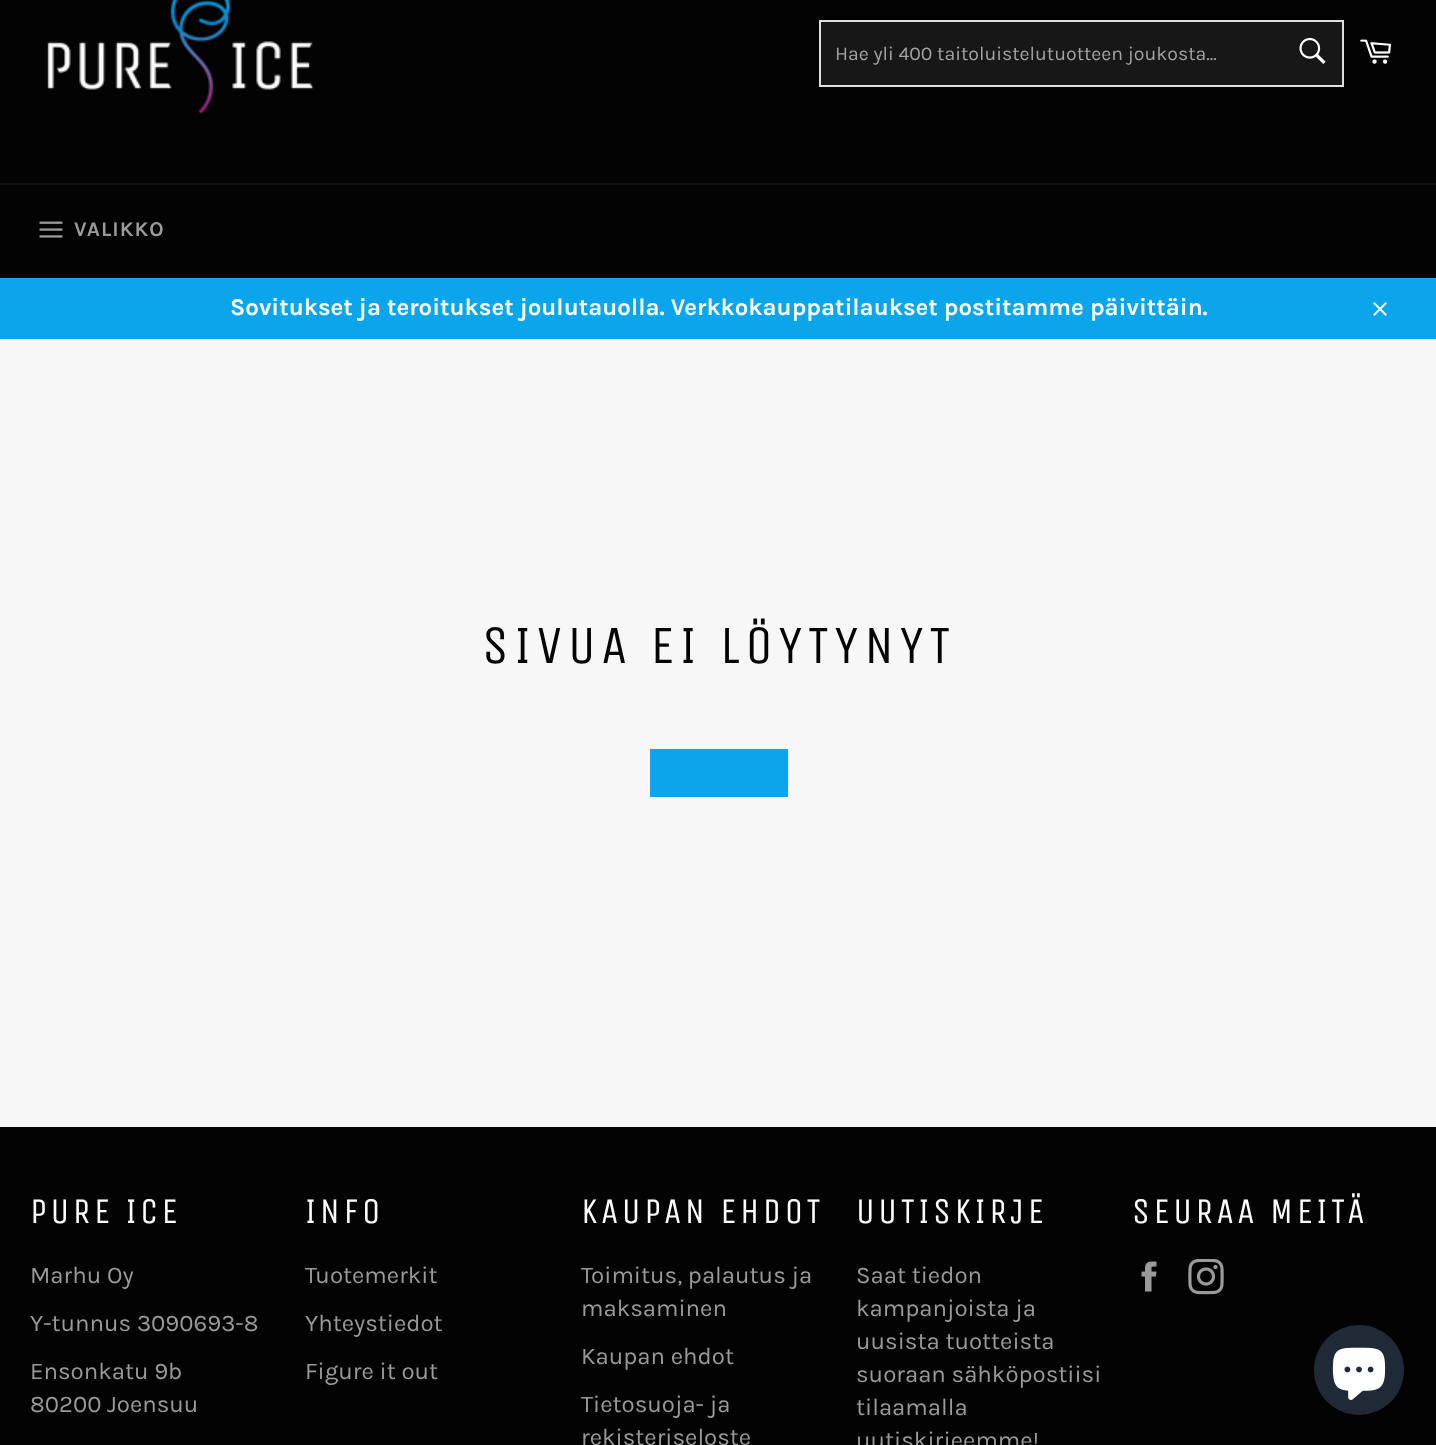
<svg xmlns="http://www.w3.org/2000/svg" width="1436" height="1445" viewBox="0 0 1436 1445">
  <rect width="100%" height="100%" fill="#f7f7f7"/>
  <rect x="0" y="0" width="1436" height="183" fill="#030303"/>
  <image x="47" y="0" width="267" height="114" href="img1.png"/>
  <rect x="820" y="21" width="523" height="65" fill="#171717" stroke="#dedede" stroke-width="2"/>
  <text x="835" y="60" font-family="Karla" font-size="19.5" fill="#a2a2a2">Hae yli 400 taitoluistelutuotteen joukosta...</text>
  <image x="1299" y="37" width="27" height="27" href="img2.png"/>
  <image x="1360" y="39" width="31" height="25" href="img3.png"/>
  <rect x="0" y="185" width="1436" height="93" fill="#030303"/>
  <rect x="0" y="183" width="1436" height="2" fill="#101010"/>
  <image x="39" y="221" width="24" height="17" href="img4.png"/>
  <text x="74" y="236" font-family="Karla" font-size="21" font-weight="bold" letter-spacing="1" fill="#9a9a9a">VALIKKO</text>
  <rect x="0" y="278" width="1436" height="61" fill="#0aa5eb"/>
  <text x="230" y="315" font-family="Karla" font-size="24" font-weight="bold" fill="#ffffff">Sovitukset ja teroitukset joulutauolla. Verkkokauppatilaukset postitamme päivittäin.</text>
  <image x="1373" y="302" width="14" height="14" href="img5.png"/>
  <text x="482" y="663" font-family="Unica One" font-size="54" letter-spacing="5.4" fill="#030303">SIVUA EI LÖYTYNYT</text>
  <rect x="650" y="749" width="138" height="48" fill="#0aa5eb"/>
  <rect x="0" y="1127" width="1436" height="318" fill="#030303"/>
  <text x="30" y="1223" font-family="Unica One" font-size="36" letter-spacing="3.6" fill="#ffffff">PURE ICE</text>
  <text x="30" y="1283" font-family="Karla" font-size="24" fill="#9a9a9a">Marhu Oy</text>
  <text x="30" y="1331" font-family="Karla" font-size="24" fill="#9a9a9a">Y-tunnus 3090693-8</text>
  <text x="30" y="1379" font-family="Karla" font-size="24" fill="#9a9a9a">Ensonkatu 9b</text>
  <text x="30" y="1412" font-family="Karla" font-size="24" fill="#9a9a9a">80200 Joensuu</text>
  <text x="305" y="1223" font-family="Unica One" font-size="36" letter-spacing="3.6" fill="#ffffff">INFO</text>
  <text x="305" y="1283" font-family="Karla" font-size="24" fill="#9a9a9a">Tuotemerkit</text>
  <text x="305" y="1331" font-family="Karla" font-size="24" fill="#9a9a9a">Yhteystiedot</text>
  <text x="305" y="1379" font-family="Karla" font-size="24" fill="#9a9a9a">Figure it out</text>
  <text x="581" y="1223" font-family="Unica One" font-size="36" letter-spacing="3.6" fill="#ffffff">KAUPAN EHDOT</text>
  <text x="581" y="1283" font-family="Karla" font-size="24" fill="#9a9a9a">Toimitus, palautus ja</text>
  <text x="581" y="1316" font-family="Karla" font-size="24" fill="#9a9a9a">maksaminen</text>
  <text x="581" y="1364" font-family="Karla" font-size="24" fill="#9a9a9a">Kaupan ehdot</text>
  <text x="581" y="1412" font-family="Karla" font-size="24" fill="#9a9a9a">Tietosuoja- ja</text>
  <text x="581" y="1445" font-family="Karla" font-size="24" fill="#9a9a9a">rekisteriseloste</text>
  <text x="856" y="1223" font-family="Unica One" font-size="36" letter-spacing="3.6" fill="#ffffff">UUTISKIRJE</text>
  <text x="856" y="1283" font-family="Karla" font-size="24" fill="#9a9a9a">Saat tiedon</text>
  <text x="856" y="1316" font-family="Karla" font-size="24" fill="#9a9a9a">kampanjoista ja</text>
  <text x="856" y="1349" font-family="Karla" font-size="24" fill="#9a9a9a">uusista tuotteista</text>
  <text x="856" y="1382" font-family="Karla" font-size="24" fill="#9a9a9a">suoraan sähköpostiisi</text>
  <text x="856" y="1415" font-family="Karla" font-size="24" fill="#9a9a9a">tilaamalla</text>
  <text x="856" y="1448" font-family="Karla" font-size="24" fill="#9a9a9a">uutiskirjeemme!</text>
  <text x="1132" y="1223" font-family="Unica One" font-size="36" letter-spacing="3.6" fill="#ffffff">SEURAA MEITÄ</text>
  <image x="1141" y="1261" width="16" height="31" href="img6.png"/>
  <image x="1188" y="1259" width="36" height="36" href="img7.png"/>
  <circle cx="1359" cy="1370" r="45" fill="#202a36"/>
  <image x="1332" y="1347" width="54" height="53" href="img8.png"/>
</svg>
